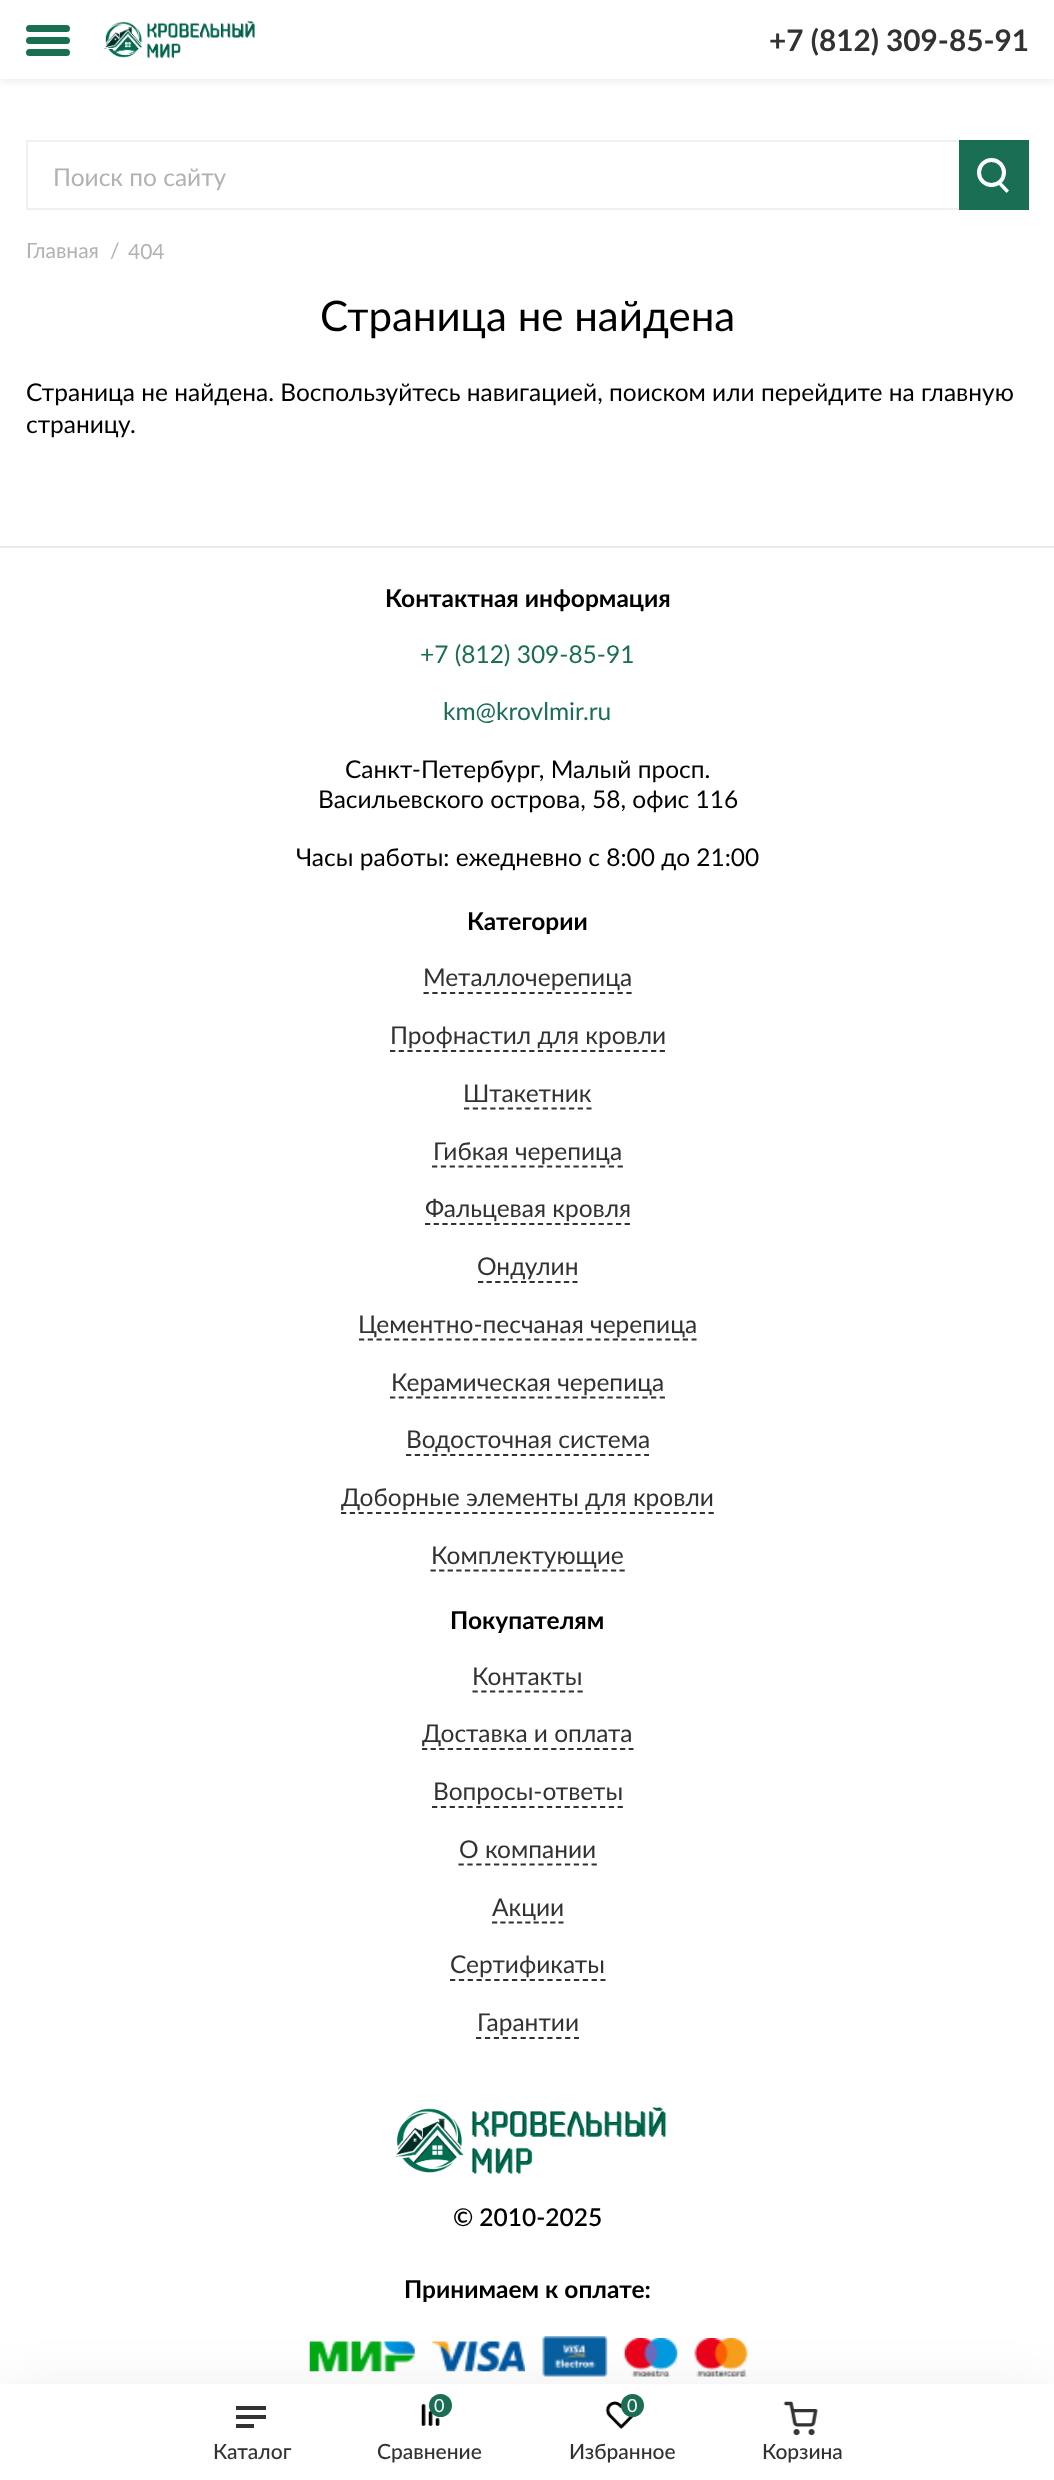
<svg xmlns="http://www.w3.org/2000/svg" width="1054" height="2480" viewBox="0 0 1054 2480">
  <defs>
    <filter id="blur1" x="-50%" y="-200%" width="200%" height="500%"><feGaussianBlur stdDeviation="4.5"/></filter>
    <filter id="blur2" x="-50%" y="-200%" width="200%" height="500%"><feGaussianBlur stdDeviation="28"/></filter>
  </defs>
  <rect width="100%" height="100%" fill="#ffffff"/>
  <rect x="0" y="2" width="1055" height="79" fill="#19293f" fill-opacity="0.08" filter="url(#blur1)"/>
  <rect x="0" y="0" width="1054" height="79" fill="#ffffff"/>
  <rect x="26" y="25" width="44" height="7" rx="3.5" fill="#196e53"/>
  <rect x="26" y="37" width="44" height="7" rx="3.5" fill="#196e53"/>
  <rect x="26" y="49" width="44" height="7" rx="3.5" fill="#196e53"/>
  <text x="769" y="51" font-family="Lato" font-size="29.75" font-weight="bold" fill="#323232">+7 (812) 309-85-91</text>
  <image x="104" y="21" width="151" height="38" href="img1.png"/>
  <image x="309" y="2341" width="106" height="31" href="img6.png"/>
  <image x="432" y="2341" width="93" height="31" href="img7.png"/>
  <image x="542" y="2336" width="66" height="41" href="img8.png"/>
  <image x="624" y="2338" width="54" height="39" href="img9.png"/>
  <image x="694" y="2338" width="54" height="39" href="img10.png"/>
  <rect x="0" y="2391" width="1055" height="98" fill="#333333" fill-opacity="0.08" filter="url(#blur2)"/>
  <rect x="0" y="2384" width="1054" height="96" fill="#ffffff"/>
  <rect x="236" y="2406" width="30" height="4" fill="#323232"/>
  <rect x="236" y="2415" width="30" height="4" fill="#323232"/>
  <rect x="236" y="2424" width="18" height="4" fill="#323232"/>
  <text x="213" y="2459" font-family="Lato" font-size="21" font-weight="500" fill="#323232">Каталог</text>
  <image x="421" y="2404" width="19" height="22" href="img2.png"/>
  <circle cx="440.5" cy="2405.5" r="11.5" fill="#196e53"/>
  <text x="434" y="2412" font-family="Lato" font-size="18" fill="#ffffff">0</text>
  <text x="377" y="2459" font-family="Lato" font-size="21" font-weight="500" fill="#323232">Сравнение</text>
  <image x="605" y="2401" width="30" height="28" href="img3.png"/>
  <circle cx="632.5" cy="2405.5" r="11.5" fill="#196e53"/>
  <text x="627" y="2412" font-family="Lato" font-size="18" fill="#ffffff">0</text>
  <text x="569" y="2459" font-family="Lato" font-size="21" font-weight="500" fill="#323232">Избранное</text>
  <image x="783" y="2401" width="35" height="35" href="img4.png"/>
  <text x="762" y="2459" font-family="Lato" font-size="21" font-weight="500" fill="#323232">Корзина</text>
  <rect x="26" y="140" width="933" height="2" fill="#f0f0f0"/>
  <rect x="26" y="208" width="933" height="2" fill="#f0f0f0"/>
  <rect x="26" y="140" width="2" height="70" fill="#f0f0f0"/>
  <text x="53" y="186" font-family="Lato" font-size="24.5" fill="#b1b2b3">Поиск по сайту</text>
  <rect x="959" y="140" width="70" height="70" fill="#196e53"/>
  <circle cx="991.5" cy="172.5" r="12.5" fill="none" stroke="#ffffff" stroke-width="4"/>
  <path d="M1000.5 181.5L1009 190.5L1006.5 193L998 184Z" fill="#ffffff"/>
  <text x="26" y="258" font-family="Lato" font-size="21" fill="#b1b2b3">Главная</text>
  <text x="110" y="258" font-family="Lato" font-size="21" fill="#b1b2b3">/</text>
  <text x="128" y="259" font-family="Lato" font-size="21" fill="#b1b2b3">404</text>
  <text x="320" y="331" font-family="Lato" font-size="42" fill="#000000">Страница не найдена</text>
  <text x="26" y="401" font-family="Lato" font-size="24.5" fill="#000000">Страница не найдена. Воспользуйтесь навигацией, поиском или перейдите на главную</text>
  <text x="26" y="433" font-family="Lato" font-size="24.5" fill="#000000">страницу.</text>
  <rect x="0" y="546" width="1054" height="2" fill="#eaeaea"/>
  <text x="385" y="607" font-family="Lato" font-size="24.5" font-weight="bold" fill="#000000">Контактная информация</text>
  <text x="420" y="663" font-family="Lato" font-size="24.5" fill="#196e53">+7 (812) 309-85-91</text>
  <text x="443" y="720" font-family="Lato" font-size="24.5" fill="#196e53">km@krovlmir.ru</text>
  <text x="345" y="778" font-family="Lato" font-size="24.5" fill="#000000">Санкт-Петербург, Малый просп.</text>
  <text x="318" y="808" font-family="Lato" font-size="24.5" fill="#000000">Васильевского острова, 58, офис 116</text>
  <text x="296" y="866" font-family="Lato" font-size="24.5" fill="#000000">Часы работы: ежедневно с 8:00 до 21:00</text>
  <text x="467" y="930" font-family="Lato" font-size="24.5" font-weight="bold" fill="#000000">Категории</text>
  <text x="423" y="986" font-family="Lato" font-size="24.5" fill="#323232">Металлочерепица</text>
  <path d="M423.5 993H632" fill="none" stroke="#323232" stroke-width="1.8" stroke-dasharray="5.25 3.57"/>
  <text x="390" y="1044" font-family="Lato" font-size="24.5" fill="#323232">Профнастил для кровли</text>
  <path d="M390 1051H665" fill="none" stroke="#323232" stroke-width="1.8" stroke-dasharray="5.25 3.45"/>
  <text x="463" y="1102" font-family="Lato" font-size="24.5" fill="#323232">Штакетник</text>
  <path d="M464 1108.5H591.5" fill="none" stroke="#323232" stroke-width="1.8" stroke-dasharray="5.25 3.5"/>
  <text x="433" y="1160" font-family="Lato" font-size="24.5" fill="#323232">Гибкая черепица</text>
  <path d="M432 1166.5H623" fill="none" stroke="#323232" stroke-width="1.8" stroke-dasharray="5.25 3.59"/>
  <text x="425" y="1217" font-family="Lato" font-size="24.5" fill="#323232">Фальцевая кровля</text>
  <path d="M425 1224H630" fill="none" stroke="#323232" stroke-width="1.8" stroke-dasharray="5.25 3.43"/>
  <text x="477" y="1275" font-family="Lato" font-size="24.5" fill="#323232">Ондулин</text>
  <path d="M478 1282H577.5" fill="none" stroke="#323232" stroke-width="1.8" stroke-dasharray="5.25 3.34"/>
  <text x="358" y="1333" font-family="Lato" font-size="24.5" fill="#323232">Цементно-песчаная черепица</text>
  <path d="M359 1339.5H696.5" fill="none" stroke="#323232" stroke-width="1.8" stroke-dasharray="5.25 3.5"/>
  <text x="391" y="1391" font-family="Lato" font-size="24.5" fill="#323232">Керамическая черепица</text>
  <path d="M390 1397.5H665" fill="none" stroke="#323232" stroke-width="1.8" stroke-dasharray="5.25 3.45"/>
  <text x="406" y="1448" font-family="Lato" font-size="24.5" fill="#323232">Водосточная система</text>
  <path d="M406 1455H649" fill="none" stroke="#323232" stroke-width="1.8" stroke-dasharray="5.25 3.57"/>
  <text x="341" y="1506" font-family="Lato" font-size="24.5" fill="#323232">Доборные элементы для кровли</text>
  <path d="M341 1513H714" fill="none" stroke="#323232" stroke-width="1.8" stroke-dasharray="5.25 3.5"/>
  <text x="431" y="1564" font-family="Lato" font-size="24.5" fill="#323232">Комплектующие</text>
  <path d="M430.5 1570.5H625" fill="none" stroke="#323232" stroke-width="1.8" stroke-dasharray="5.25 3.34"/>
  <text x="450" y="1629" font-family="Lato" font-size="24.5" font-weight="bold" fill="#000000">Покупателям</text>
  <text x="472" y="1685" font-family="Lato" font-size="24.5" fill="#323232">Контакты</text>
  <path d="M472.5 1691.5H583" fill="none" stroke="#323232" stroke-width="1.8" stroke-dasharray="5.25 3.5"/>
  <text x="422" y="1742" font-family="Lato" font-size="24.5" fill="#323232">Доставка и оплата</text>
  <path d="M422 1749H633.5" fill="none" stroke="#323232" stroke-width="1.8" stroke-dasharray="5.25 3.36"/>
  <text x="433" y="1800" font-family="Lato" font-size="24.5" fill="#323232">Вопросы-ответы</text>
  <path d="M432 1807H623" fill="none" stroke="#323232" stroke-width="1.8" stroke-dasharray="5.25 3.59"/>
  <text x="459" y="1858" font-family="Lato" font-size="24.5" fill="#323232">О компании</text>
  <path d="M458.5 1864.5H597" fill="none" stroke="#323232" stroke-width="1.8" stroke-dasharray="5.25 3.62"/>
  <text x="492" y="1916" font-family="Lato" font-size="24.5" fill="#323232">Акции</text>
  <path d="M492 1922.5H563.5" fill="none" stroke="#323232" stroke-width="1.8" stroke-dasharray="5.25 3.06"/>
  <text x="450" y="1973" font-family="Lato" font-size="24.5" fill="#323232">Сертификаты</text>
  <path d="M450 1980H605.5" fill="none" stroke="#323232" stroke-width="1.8" stroke-dasharray="5.25 3.6"/>
  <text x="477" y="2031" font-family="Lato" font-size="24.5" fill="#323232">Гарантии</text>
  <path d="M476 2038H579" fill="none" stroke="#323232" stroke-width="1.8" stroke-dasharray="5.25 3.66"/>
  <image x="394" y="2107" width="272" height="67" href="img5.png"/>
  <text x="453" y="2226" font-family="Lato" font-size="24.5" font-weight="600" fill="#000000">© 2010-2025</text>
  <text x="404" y="2298" font-family="Lato" font-size="24.5" font-weight="bold" fill="#000000">Принимаем к оплате:</text>
</svg>
